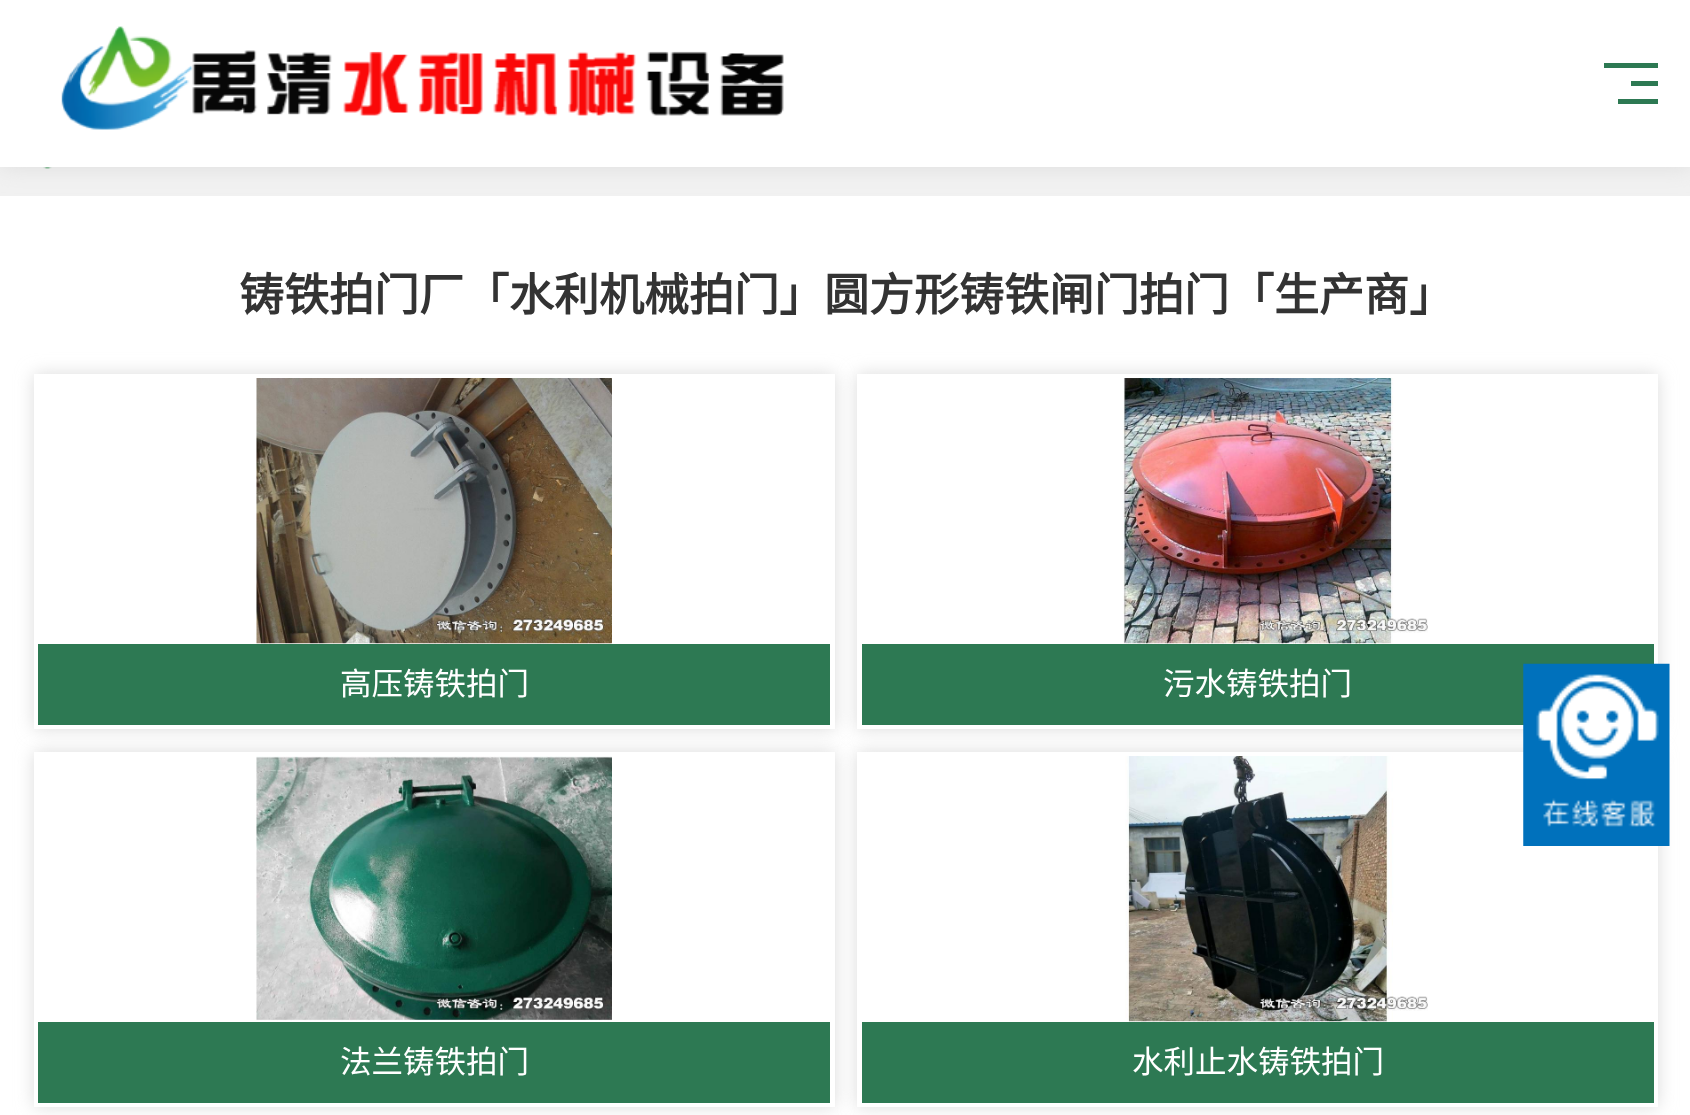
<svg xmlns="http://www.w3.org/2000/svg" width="1690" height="1115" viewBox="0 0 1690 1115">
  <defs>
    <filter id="blur1" x="-50%" y="-200%" width="200%" height="500%"><feGaussianBlur stdDeviation="11"/></filter>
    <filter id="blur2" x="-50%" y="-200%" width="200%" height="500%"><feGaussianBlur stdDeviation="9"/></filter>
  </defs>
  <rect width="100%" height="100%" fill="#ffffff"/>
  <rect x="0" y="167" width="1690" height="29" fill="#f1f1f1"/>
  <image x="43" y="167" width="9" height="2" href="img2.png"/>
  <rect x="0" y="0" width="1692" height="167" fill="#dddddd" filter="url(#blur1)"/>
  <rect x="0" y="0" width="1690" height="167" fill="#ffffff"/>
  <image x="61" y="26" width="723" height="104" href="img1.png"/>
  <rect x="1604" y="63" width="54" height="5" fill="#2d7953"/>
  <rect x="1631" y="81" width="27" height="5" fill="#2d7953"/>
  <rect x="1618" y="99" width="40" height="5" fill="#2d7953"/>
  <text x="239" y="311" font-family="Noto Sans CJK SC" font-size="45" font-weight="bold" fill="#333333">铸铁拍门厂「水利机械拍门」圆方形铸铁闸门拍门「生产商」</text>
  <rect x="34" y="374" width="801" height="355" fill="#dbdbdb" filter="url(#blur2)"/>
  <rect x="34" y="374" width="801" height="355" fill="#ffffff"/>
  <image x="256" y="378" width="356" height="266" href="img3.png"/>
  <rect x="857" y="374" width="801" height="355" fill="#dbdbdb" filter="url(#blur2)"/>
  <rect x="857" y="374" width="801" height="355" fill="#ffffff"/>
  <rect x="34" y="752" width="801" height="355" fill="#dbdbdb" filter="url(#blur2)"/>
  <rect x="34" y="752" width="801" height="355" fill="#ffffff"/>
  <rect x="857" y="752" width="801" height="355" fill="#dbdbdb" filter="url(#blur2)"/>
  <rect x="38" y="644" width="792" height="81" fill="#2d7953"/>
  <text x="340" y="695" font-family="Noto Sans CJK SC" font-size="31.5" fill="#ffffff">高压铸铁拍门</text>
  <image x="1123" y="378" width="305" height="266" href="img4.png"/>
  <rect x="862" y="644" width="792" height="81" fill="#2d7953"/>
  <text x="1163" y="695" font-family="Noto Sans CJK SC" font-size="31.5" fill="#ffffff">污水铸铁拍门</text>
  <image x="256" y="756" width="356" height="265" href="img5.png"/>
  <rect x="38" y="1022" width="792" height="81" fill="#2d7953"/>
  <text x="340" y="1073" font-family="Noto Sans CJK SC" font-size="31.5" fill="#ffffff">法兰铸铁拍门</text>
  <rect x="857" y="752" width="801" height="355" fill="#ffffff"/>
  <image x="1125" y="756" width="303" height="266" href="img6.png"/>
  <rect x="862" y="1022" width="792" height="81" fill="#2d7953"/>
  <text x="1132" y="1073" font-family="Noto Sans CJK SC" font-size="31.5" fill="#ffffff">水利止水铸铁拍门</text>
  <image x="1523" y="663" width="147" height="183" href="img7.png"/>
</svg>
